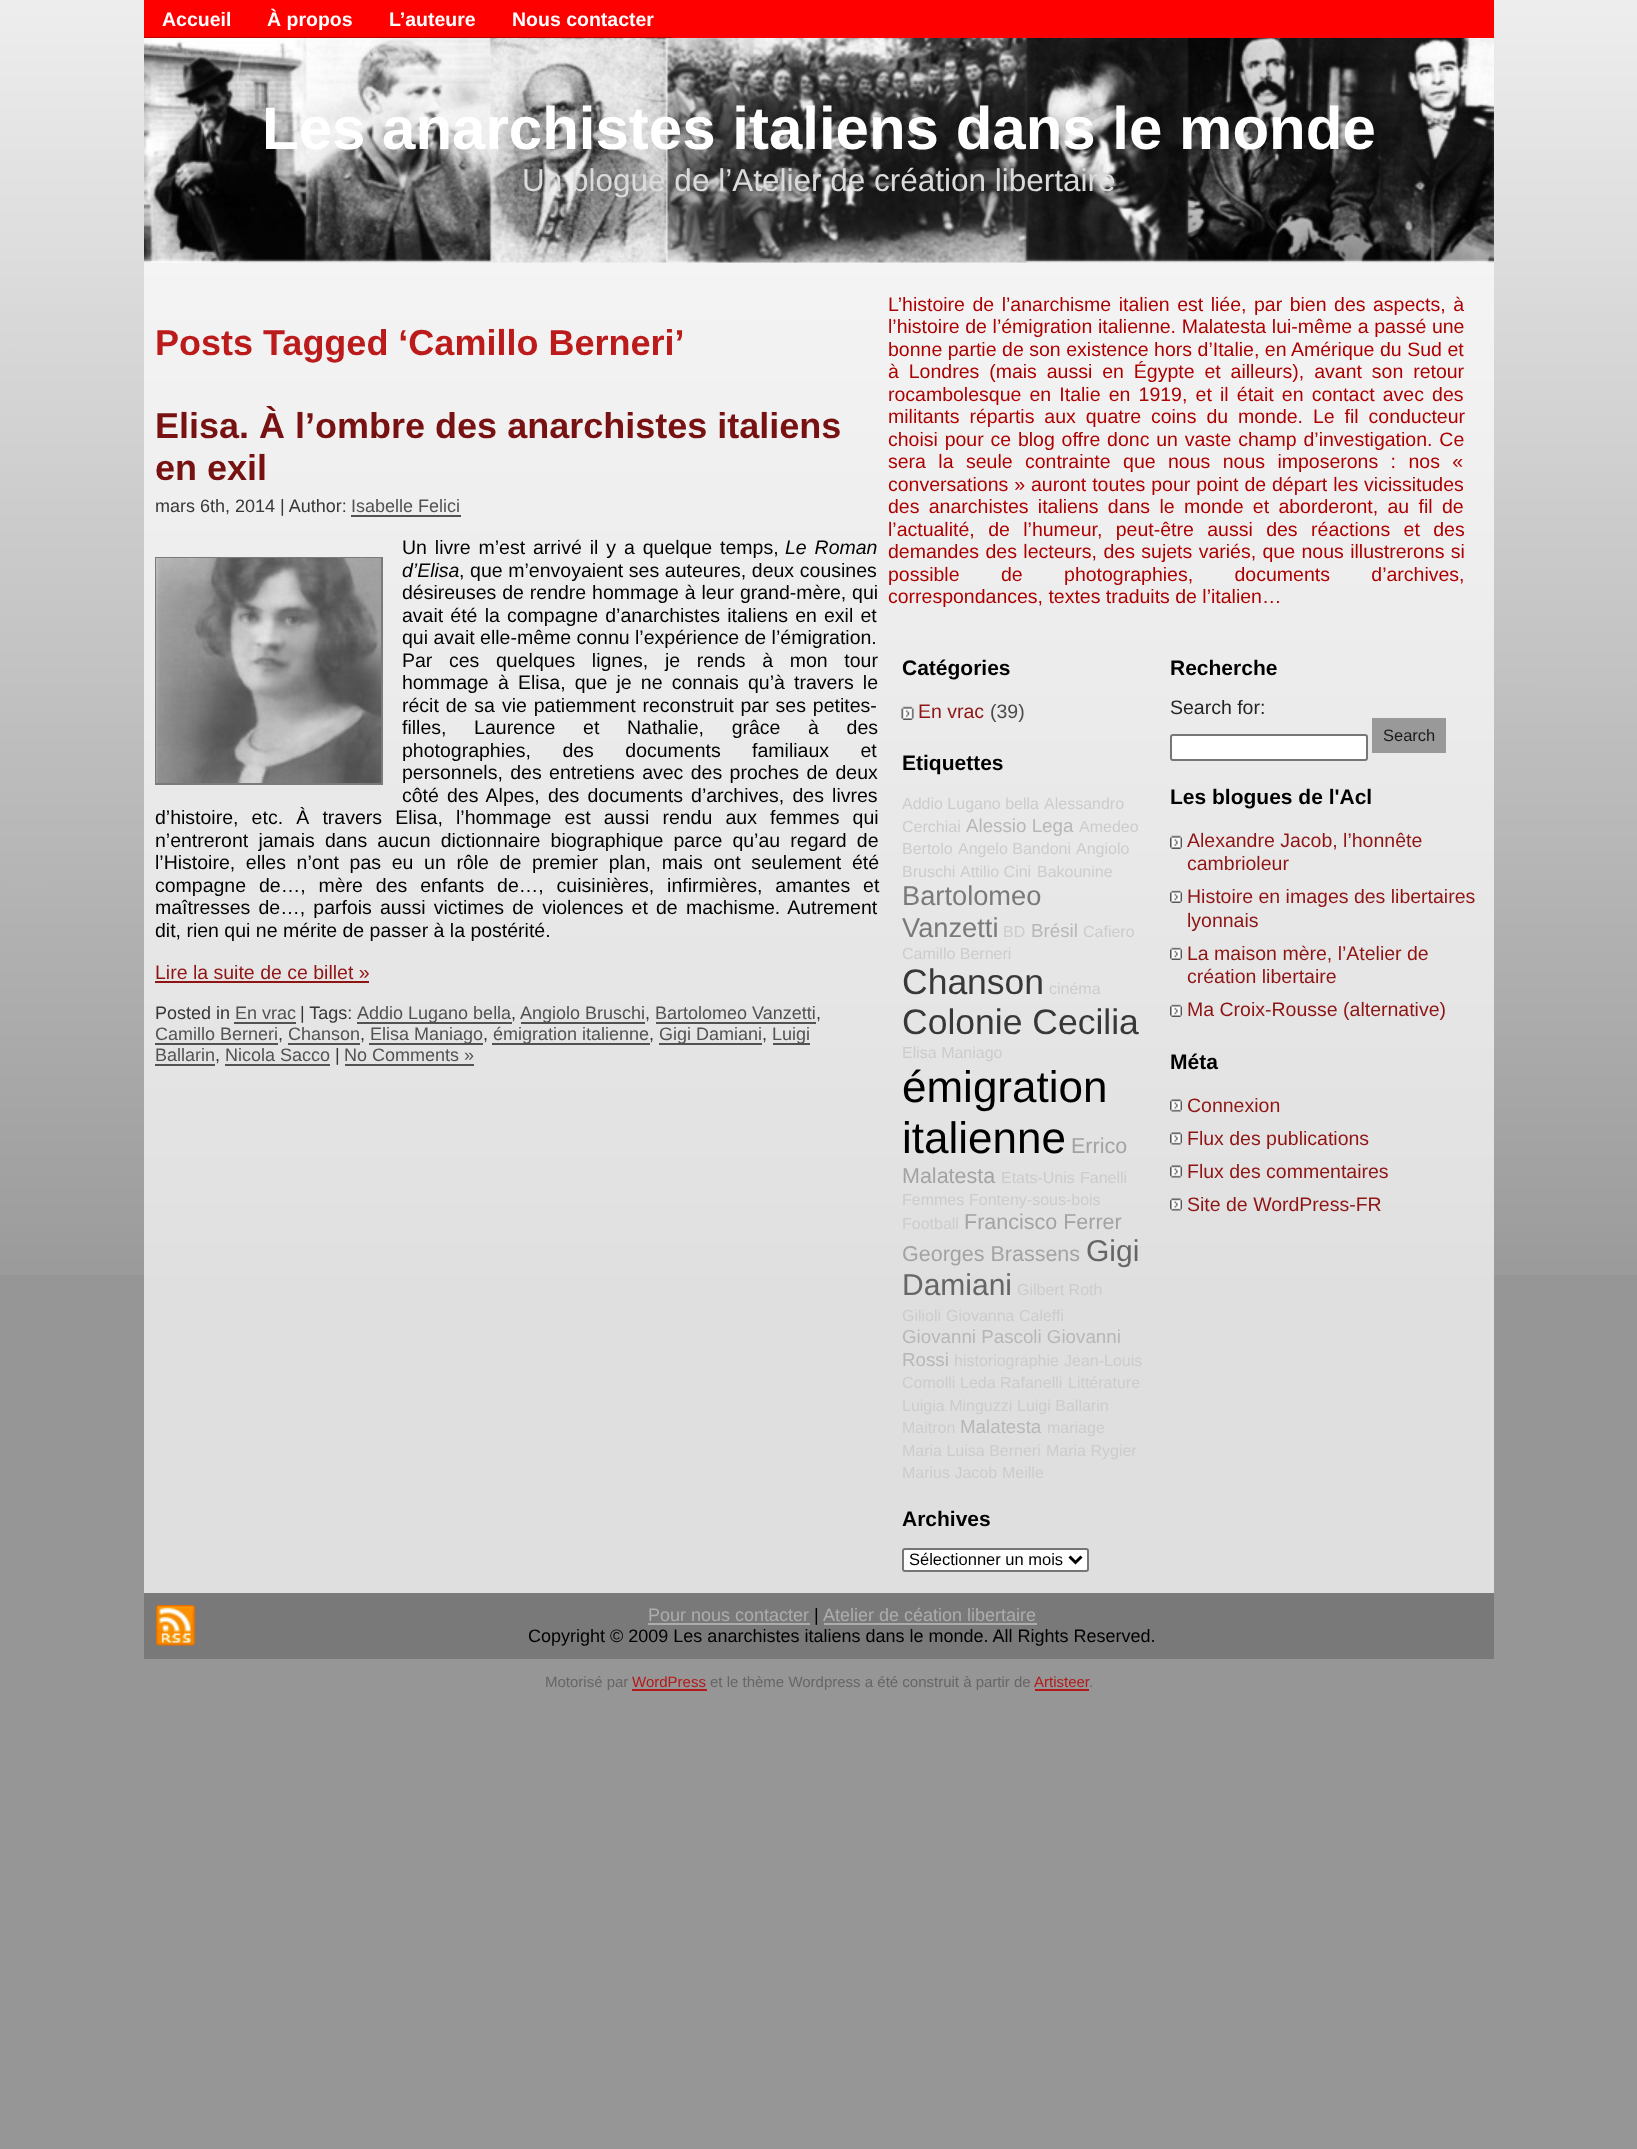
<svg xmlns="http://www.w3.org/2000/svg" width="1637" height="2149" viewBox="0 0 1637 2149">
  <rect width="100%" height="100%" fill="#969696"/>
  <image x="0" y="0" width="1637" height="1275" href="img1.png"/>
  <rect x="144" y="0" width="1350" height="38" fill="#ff0000"/>
  <rect x="144" y="37" width="105" height="1" fill="#c00000"/>
  <text x="162" y="26" font-family="Liberation Sans" font-size="19.5" font-weight="bold" fill="#ffffff">Accueil</text>
  <image x="249" y="37" width="122" height="1" href="img2.png"/>
  <text x="267" y="26" font-family="Liberation Sans" font-size="19.5" font-weight="bold" fill="#ffffff">À propos</text>
  <image x="370" y="37" width="124" height="1" href="img3.png"/>
  <text x="389" y="26" font-family="Liberation Sans" font-size="19.5" font-weight="bold" fill="#ffffff">L’auteure</text>
  <image x="493" y="37" width="179" height="1" href="img4.png"/>
  <text x="512" y="26" font-family="Liberation Sans" font-size="19.5" font-weight="bold" fill="#ffffff">Nous contacter</text>
  <rect x="144" y="262" width="1350" height="1331" fill="#fefefe" fill-opacity="0.7"/>
  <image x="144" y="38" width="1350" height="225" href="img5.png"/>
  <text x="262" y="149" font-family="Liberation Sans" font-size="60" font-weight="bold" fill="#ffffff">Les anarchistes italiens dans le monde</text>
  <text x="522" y="191" font-family="Liberation Sans" font-size="31.5" fill="#dbdbdb">Un blogue de l’Atelier de création libertaire</text>
  <text x="155" y="355" font-family="Liberation Sans" font-size="36" font-weight="bold" fill="#bb1b1b">Posts Tagged ‘Camillo Berneri’</text>
  <text x="155" y="438" font-family="Liberation Sans" font-size="36" font-weight="bold" fill="#781111">Elisa. À l’ombre des anarchistes italiens</text>
  <text x="155" y="480" font-family="Liberation Sans" font-size="36" font-weight="bold" fill="#781111">en exil</text>
  <text x="155" y="512" font-family="Liberation Sans" font-size="18" fill="#383838">mars 6th, 2014 | Author:</text>
  <text x="351" y="512" font-family="Liberation Sans" font-size="18" fill="#525252">Isabelle Felici</text>
  <rect x="351" y="515" width="110" height="2" fill="#525252"/>
  <text x="402" y="554" word-spacing="2.5" font-family="Liberation Sans" font-size="19.5" fill="#000000">Un livre m’est arrivé il y a quelque temps,</text>
  <text x="785" y="554" word-spacing="2.5" font-family="Liberation Sans" font-size="19.5" font-style="italic" fill="#000000">Le Roman</text>
  <rect x="156" y="558" width="226" height="226" fill="none" stroke="#7a7a7a" stroke-width="2"/>
  <image x="156" y="558" width="225" height="225" href="img6.png"/>
  <text x="402" y="577" font-family="Liberation Sans" font-size="19.5" font-style="italic" fill="#000000">d’Elisa</text>
  <text x="459" y="577" word-spacing="0.25" font-family="Liberation Sans" font-size="19.5" fill="#000000">, que m’envoyaient ses auteures, deux cousines</text>
  <text x="402" y="599" word-spacing="0.5" font-family="Liberation Sans" font-size="19.5" fill="#000000">désireuses de rendre hommage à leur grand-mère, qui</text>
  <text x="402" y="622" word-spacing="1.75" font-family="Liberation Sans" font-size="19.5" fill="#000000">avait été la compagne d’anarchistes italiens en exil et</text>
  <text x="402" y="644" font-family="Liberation Sans" font-size="19.5" fill="#000000">qui avait elle-même connu l’expérience de l’émigration.</text>
  <text x="402" y="667" word-spacing="11.25" font-family="Liberation Sans" font-size="19.5" fill="#000000">Par ces quelques lignes, je rends à mon tour</text>
  <text x="402" y="689" word-spacing="3.75" font-family="Liberation Sans" font-size="19.5" fill="#000000">hommage à Elisa, que je ne connais qu’à travers le</text>
  <text x="402" y="712" word-spacing="1.5" font-family="Liberation Sans" font-size="19.5" fill="#000000">récit de sa vie patiemment reconstruit par ses petites-</text>
  <text x="402" y="734" word-spacing="22.25" font-family="Liberation Sans" font-size="19.5" fill="#000000">filles, Laurence et Nathalie, grâce à des</text>
  <text x="402" y="757" word-spacing="26" font-family="Liberation Sans" font-size="19.5" fill="#000000">photographies, des documents familiaux et</text>
  <text x="402" y="779" word-spacing="2" font-family="Liberation Sans" font-size="19.5" fill="#000000">personnels, des entretiens avec des proches de deux</text>
  <text x="402" y="802" word-spacing="2.75" font-family="Liberation Sans" font-size="19.5" fill="#000000">côté des Alpes, des documents d’archives, des livres</text>
  <text x="155" y="824" word-spacing="7.75" font-family="Liberation Sans" font-size="19.5" fill="#000000">d’histoire, etc. À travers Elisa, l’hommage est aussi rendu aux femmes qui</text>
  <text x="155" y="847" word-spacing="4.75" font-family="Liberation Sans" font-size="19.5" fill="#000000">n’entreront jamais dans aucun dictionnaire biographique parce qu’au regard de</text>
  <text x="155" y="869" word-spacing="5.25" font-family="Liberation Sans" font-size="19.5" fill="#000000">l’Histoire, elles n’ont pas eu un rôle de premier plan, mais ont seulement été</text>
  <text x="155" y="892" word-spacing="7.5" font-family="Liberation Sans" font-size="19.5" fill="#000000">compagne de…, mère des enfants de…, cuisinières, infirmières, amantes et</text>
  <text x="155" y="914" word-spacing="2.75" font-family="Liberation Sans" font-size="19.5" fill="#000000">maîtresses de…, parfois aussi victimes de violences et de machisme. Autrement</text>
  <text x="155" y="937" font-family="Liberation Sans" font-size="19.5" fill="#000000">dit, rien qui ne mérite de passer à la postérité.</text>
  <text x="155" y="979" font-family="Liberation Sans" font-size="19.5" fill="#8f1414">Lire la suite de ce billet »</text>
  <rect x="155" y="981" width="214" height="2" fill="#8f1414"/>
  <text x="155" y="1019" font-family="Liberation Sans" font-size="18" fill="#383838">Posted in</text>
  <text x="235" y="1019" font-family="Liberation Sans" font-size="18" fill="#525252">En vrac</text>
  <rect x="234" y="1022" width="62" height="2" fill="#525252"/>
  <text x="300" y="1019" font-family="Liberation Sans" font-size="18" fill="#383838">| Tags:</text>
  <rect x="357" y="1022" width="155" height="2" fill="#525252"/>
  <text x="357" y="1019" font-family="Liberation Sans" font-size="18" fill="#525252">Addio Lugano bella</text>
  <text x="511" y="1019" font-family="Liberation Sans" font-size="18" fill="#383838">,</text>
  <rect x="521" y="1022" width="124" height="2" fill="#525252"/>
  <text x="520" y="1019" font-family="Liberation Sans" font-size="18" fill="#525252">Angiolo Bruschi</text>
  <text x="645" y="1019" font-family="Liberation Sans" font-size="18" fill="#383838">,</text>
  <text x="655" y="1019" font-family="Liberation Sans" font-size="18" fill="#525252">Bartolomeo Vanzetti</text>
  <rect x="656" y="1022" width="160" height="2" fill="#525252"/>
  <text x="816" y="1019" font-family="Liberation Sans" font-size="18" fill="#383838">,</text>
  <text x="155" y="1040" font-family="Liberation Sans" font-size="18" fill="#525252">Camillo Berneri</text>
  <rect x="155" y="1043" width="123" height="2" fill="#525252"/>
  <text x="278" y="1040" font-family="Liberation Sans" font-size="18" fill="#383838">,</text>
  <text x="288" y="1040" font-family="Liberation Sans" font-size="18" fill="#525252">Chanson</text>
  <rect x="288" y="1043" width="72" height="2" fill="#525252"/>
  <text x="360" y="1040" font-family="Liberation Sans" font-size="18" fill="#383838">,</text>
  <rect x="369" y="1043" width="114" height="2" fill="#525252"/>
  <text x="370" y="1040" font-family="Liberation Sans" font-size="18" fill="#525252">Elisa Maniago</text>
  <text x="483" y="1040" font-family="Liberation Sans" font-size="18" fill="#383838">,</text>
  <rect x="492" y="1043" width="158" height="2" fill="#525252"/>
  <text x="493" y="1040" font-family="Liberation Sans" font-size="18" fill="#525252">émigration italienne</text>
  <text x="649" y="1040" font-family="Liberation Sans" font-size="18" fill="#383838">,</text>
  <rect x="659" y="1043" width="103" height="2" fill="#525252"/>
  <text x="659" y="1040" font-family="Liberation Sans" font-size="18" fill="#525252">Gigi Damiani</text>
  <text x="762" y="1040" font-family="Liberation Sans" font-size="18" fill="#383838">,</text>
  <rect x="773" y="1043" width="37" height="2" fill="#525252"/>
  <text x="772" y="1040" font-family="Liberation Sans" font-size="18" fill="#525252">Luigi</text>
  <text x="155" y="1061" font-family="Liberation Sans" font-size="18" fill="#525252">Ballarin</text>
  <rect x="155" y="1064" width="60" height="2" fill="#525252"/>
  <text x="215" y="1061" font-family="Liberation Sans" font-size="18" fill="#383838">,</text>
  <text x="225" y="1061" font-family="Liberation Sans" font-size="18" fill="#525252">Nicola Sacco</text>
  <rect x="225" y="1064" width="105" height="2" fill="#525252"/>
  <text x="335" y="1061" font-family="Liberation Sans" font-size="18" fill="#383838">|</text>
  <text x="344" y="1061" font-family="Liberation Sans" font-size="18" fill="#525252">No Comments »</text>
  <rect x="345" y="1064" width="129" height="2" fill="#525252"/>
  <text x="888" y="311" word-spacing="2.1" font-family="Liberation Sans" font-size="19.5" fill="#ad0000">L’histoire de l’anarchisme italien est liée, par bien des aspects, à</text>
  <text x="888" y="333" word-spacing="0.25" font-family="Liberation Sans" font-size="19.5" fill="#ad0000">l’histoire de l’émigration italienne. Malatesta lui-même a passé une</text>
  <text x="888" y="356" word-spacing="0.1" font-family="Liberation Sans" font-size="19.5" fill="#ad0000">bonne partie de son existence hors d’Italie, en Amérique du Sud et</text>
  <text x="888" y="378" word-spacing="4.5" font-family="Liberation Sans" font-size="19.5" fill="#ad0000">à Londres (mais aussi en Égypte et ailleurs), avant son retour</text>
  <text x="888" y="401" word-spacing="2.75" font-family="Liberation Sans" font-size="19.5" fill="#ad0000">rocambolesque en Italie en 1919, et il était en contact avec des</text>
  <text x="888" y="423" word-spacing="4.5" font-family="Liberation Sans" font-size="19.5" fill="#ad0000">militants répartis aux quatre coins du monde. Le fil conducteur</text>
  <text x="888" y="446" word-spacing="1.4" font-family="Liberation Sans" font-size="19.5" fill="#ad0000">choisi pour ce blog offre donc un vaste champ d’investigation. Ce</text>
  <text x="888" y="468" word-spacing="7" font-family="Liberation Sans" font-size="19.5" fill="#ad0000">sera la seule contrainte que nous nous imposerons : nos «</text>
  <text x="888" y="491" word-spacing="0.5" font-family="Liberation Sans" font-size="19.5" fill="#ad0000">conversations » auront toutes pour point de départ les vicissitudes</text>
  <text x="888" y="513" word-spacing="3.9" font-family="Liberation Sans" font-size="19.5" fill="#ad0000">des anarchistes italiens dans le monde et aborderont, au fil de</text>
  <text x="888" y="536" word-spacing="8" font-family="Liberation Sans" font-size="19.5" fill="#ad0000">l’actualité, de l’humeur, peut-être aussi des réactions et des</text>
  <text x="888" y="558" word-spacing="1" font-family="Liberation Sans" font-size="19.5" fill="#ad0000">demandes des lecteurs, des sujets variés, que nous illustrerons si</text>
  <text x="888" y="581" word-spacing="36" font-family="Liberation Sans" font-size="19.5" fill="#ad0000">possible de photographies, documents d’archives,</text>
  <text x="888" y="603" font-family="Liberation Sans" font-size="19.5" fill="#ad0000">correspondances, textes traduits de l’italien…</text>
  <text x="902" y="675" font-family="Liberation Sans" font-size="21" font-weight="bold" fill="#000000">Catégories</text>
  <image x="901" y="706" width="13" height="14" href="img7.png"/>
  <text x="918" y="718" font-family="Liberation Sans" font-size="19.5" fill="#8f1414">En vrac</text>
  <text x="990" y="718" font-family="Liberation Sans" font-size="19.5" fill="#4a4a4a">(39)</text>
  <text x="902" y="770" font-family="Liberation Sans" font-size="21" font-weight="bold" fill="#000000">Etiquettes</text>
  <text x="902" y="809" font-family="Liberation Sans" font-size="16" fill="#cccccc">Addio Lugano bella</text>
  <text x="1044" y="809" font-family="Liberation Sans" font-size="16" fill="#cccccc">Alessandro</text>
  <text x="902" y="832" font-family="Liberation Sans" font-size="16" fill="#cccccc">Cerchiai</text>
  <text x="966" y="832" font-family="Liberation Sans" font-size="18.75" fill="#b7b7b7">Alessio Lega</text>
  <text x="1079" y="832" font-family="Liberation Sans" font-size="16" fill="#cccccc">Amedeo</text>
  <text x="902" y="854" font-family="Liberation Sans" font-size="16" fill="#cccccc">Bertolo</text>
  <text x="958" y="854" font-family="Liberation Sans" font-size="16" fill="#cccccc">Angelo Bandoni</text>
  <text x="1076" y="854" font-family="Liberation Sans" font-size="16" fill="#cccccc">Angiolo</text>
  <text x="902" y="877" font-family="Liberation Sans" font-size="16" fill="#cccccc">Bruschi</text>
  <text x="960" y="877" font-family="Liberation Sans" font-size="16" fill="#cccccc">Attilio Cini</text>
  <text x="1037" y="877" font-family="Liberation Sans" font-size="16" fill="#cccccc">Bakounine</text>
  <text x="902" y="905" font-family="Liberation Sans" font-size="27.25" fill="#7a7a7a">Bartolomeo</text>
  <text x="902" y="937" font-family="Liberation Sans" font-size="27.25" fill="#7a7a7a">Vanzetti</text>
  <text x="1003" y="937" font-family="Liberation Sans" font-size="16" fill="#cccccc">BD</text>
  <text x="1031" y="937" font-family="Liberation Sans" font-size="18.75" fill="#b7b7b7">Brésil</text>
  <text x="1083" y="937" font-family="Liberation Sans" font-size="16" fill="#cccccc">Cafiero</text>
  <text x="902" y="959" font-family="Liberation Sans" font-size="16" fill="#cccccc">Camillo Berneri</text>
  <text x="902" y="994" font-family="Liberation Sans" font-size="35.5" fill="#383838">Chanson</text>
  <text x="1049" y="994" font-family="Liberation Sans" font-size="16" fill="#cccccc">cinéma</text>
  <text x="902" y="1034" font-family="Liberation Sans" font-size="35.5" fill="#383838">Colonie Cecilia</text>
  <text x="902" y="1058" font-family="Liberation Sans" font-size="16" fill="#cccccc">Elisa Maniago</text>
  <text x="902" y="1102" font-family="Liberation Sans" font-size="44" fill="#000000">émigration</text>
  <text x="902" y="1153" font-family="Liberation Sans" font-size="44" fill="#000000">italienne</text>
  <text x="1071" y="1153" font-family="Liberation Sans" font-size="21.5" fill="#a3a3a3">Errico</text>
  <text x="902" y="1183" font-family="Liberation Sans" font-size="21.5" fill="#a3a3a3">Malatesta</text>
  <text x="1001" y="1183" font-family="Liberation Sans" font-size="16" fill="#cccccc">Etats-Unis</text>
  <text x="1080" y="1183" font-family="Liberation Sans" font-size="16" fill="#cccccc">Fanelli</text>
  <text x="902" y="1205" font-family="Liberation Sans" font-size="16" fill="#cccccc">Femmes</text>
  <text x="969" y="1205" font-family="Liberation Sans" font-size="16" fill="#cccccc">Fonteny-sous-bois</text>
  <text x="902" y="1229" font-family="Liberation Sans" font-size="16" fill="#cccccc">Football</text>
  <text x="964" y="1229" font-family="Liberation Sans" font-size="21.5" fill="#a3a3a3">Francisco Ferrer</text>
  <text x="902" y="1261" font-family="Liberation Sans" font-size="21.5" fill="#a3a3a3">Georges Brassens</text>
  <text x="1086" y="1261" font-family="Liberation Sans" font-size="30" fill="#666666">Gigi</text>
  <text x="902" y="1295" font-family="Liberation Sans" font-size="30" fill="#666666">Damiani</text>
  <text x="1017" y="1295" font-family="Liberation Sans" font-size="16" fill="#cccccc">Gilbert Roth</text>
  <text x="902" y="1321" font-family="Liberation Sans" font-size="16" fill="#cccccc">Gilioli</text>
  <text x="946" y="1321" font-family="Liberation Sans" font-size="16" fill="#cccccc">Giovanna Caleffi</text>
  <text x="902" y="1343" font-family="Liberation Sans" font-size="18.75" fill="#b7b7b7">Giovanni Pascoli Giovanni</text>
  <text x="902" y="1366" font-family="Liberation Sans" font-size="18.75" fill="#b7b7b7">Rossi</text>
  <text x="954" y="1366" font-family="Liberation Sans" font-size="16" fill="#cccccc">historiographie</text>
  <text x="1064" y="1366" font-family="Liberation Sans" font-size="16" fill="#cccccc">Jean-Louis</text>
  <text x="902" y="1388" font-family="Liberation Sans" font-size="16" fill="#cccccc">Comolli</text>
  <text x="960" y="1388" font-family="Liberation Sans" font-size="16" fill="#cccccc">Leda Rafanelli</text>
  <text x="1068" y="1388" font-family="Liberation Sans" font-size="16" fill="#cccccc">Littérature</text>
  <text x="902" y="1411" font-family="Liberation Sans" font-size="16" fill="#cccccc">Luigia Minguzzi</text>
  <text x="1017" y="1411" font-family="Liberation Sans" font-size="16" fill="#cccccc">Luigi Ballarin</text>
  <text x="902" y="1433" font-family="Liberation Sans" font-size="16" fill="#cccccc">Maitron</text>
  <text x="960" y="1433" font-family="Liberation Sans" font-size="18.75" fill="#b7b7b7">Malatesta</text>
  <text x="1047" y="1433" font-family="Liberation Sans" font-size="16" fill="#cccccc">mariage</text>
  <text x="902" y="1456" font-family="Liberation Sans" font-size="16" fill="#cccccc">Maria Luisa Berneri</text>
  <text x="1046" y="1456" font-family="Liberation Sans" font-size="16" fill="#cccccc">Maria Rygier</text>
  <text x="902" y="1478" font-family="Liberation Sans" font-size="16" fill="#cccccc">Marius Jacob</text>
  <text x="1002" y="1478" font-family="Liberation Sans" font-size="16" fill="#cccccc">Meille</text>
  <text x="902" y="1526" font-family="Liberation Sans" font-size="21" font-weight="bold" fill="#000000">Archives</text>
  <rect x="903" y="1549" width="185" height="22" rx="2" fill="#ffffff" stroke="#767676" stroke-width="2"/>
  <path d="M1069.5 1556.5L1075.5 1562.5L1081.5 1556.5" fill="none" stroke="#000000" stroke-width="3"/>
  <text x="909" y="1565" font-family="Liberation Sans" font-size="16.5" fill="#000000">Sélectionner un mois</text>
  <text x="1170" y="675" font-family="Liberation Sans" font-size="21" font-weight="bold" fill="#000000">Recherche</text>
  <text x="1170" y="714" font-family="Liberation Sans" font-size="19.5" fill="#242424">Search for:</text>
  <rect x="1171" y="735" width="196" height="25" rx="2" fill="#ffffff" stroke="#767676" stroke-width="2"/>
  <rect x="1372" y="718" width="74" height="35" fill="#999999"/>
  <text x="1383" y="741" font-family="Liberation Sans" font-size="16.5" fill="#1a1a1a">Search</text>
  <text x="1170" y="804" font-family="Liberation Sans" font-size="21" font-weight="bold" fill="#000000">Les blogues de l'Acl</text>
  <image x="1170" y="835" width="12" height="14" href="img8.png"/>
  <text x="1187" y="847" font-family="Liberation Sans" font-size="19.5" fill="#8f1414">Alexandre Jacob, l’honnête</text>
  <text x="1187" y="870" font-family="Liberation Sans" font-size="19.5" fill="#8f1414">cambrioleur</text>
  <image x="1170" y="890" width="12" height="13" href="img9.png"/>
  <text x="1187" y="903" font-family="Liberation Sans" font-size="19.5" fill="#8f1414">Histoire en images des libertaires</text>
  <text x="1187" y="927" font-family="Liberation Sans" font-size="19.5" fill="#8f1414">lyonnais</text>
  <image x="1170" y="947" width="12" height="13" href="img10.png"/>
  <text x="1187" y="960" font-family="Liberation Sans" font-size="19.5" fill="#8f1414">La maison mère, l’Atelier de</text>
  <text x="1187" y="983" font-family="Liberation Sans" font-size="19.5" fill="#8f1414">création libertaire</text>
  <image x="1170" y="1004" width="12" height="13" href="img11.png"/>
  <text x="1187" y="1016" font-family="Liberation Sans" font-size="19.5" fill="#8f1414">Ma Croix-Rousse (alternative)</text>
  <text x="1170" y="1069" font-family="Liberation Sans" font-size="21" font-weight="bold" fill="#000000">Méta</text>
  <image x="1170" y="1099" width="12" height="13" href="img12.png"/>
  <text x="1187" y="1112" font-family="Liberation Sans" font-size="19.5" fill="#8f1414">Connexion</text>
  <image x="1170" y="1132" width="12" height="13" href="img13.png"/>
  <text x="1187" y="1145" font-family="Liberation Sans" font-size="19.5" fill="#8f1414">Flux des publications</text>
  <image x="1170" y="1165" width="12" height="13" href="img14.png"/>
  <text x="1187" y="1178" font-family="Liberation Sans" font-size="19.5" fill="#8f1414">Flux des commentaires</text>
  <image x="1170" y="1198" width="12" height="13" href="img15.png"/>
  <text x="1187" y="1211" font-family="Liberation Sans" font-size="19.5" fill="#8f1414">Site de WordPress-FR</text>
  <rect x="144" y="1593" width="1350" height="66" fill="#797979"/>
  <image x="156" y="1605" width="39" height="41" href="img16.png"/>
  <text x="648" y="1621" font-family="Liberation Sans" font-size="18" fill="#adadad">Pour nous contacter</text>
  <rect x="648" y="1623" width="162" height="2" fill="#adadad"/>
  <text x="814" y="1621" font-family="Liberation Sans" font-size="18" fill="#000000">|</text>
  <text x="823" y="1621" font-family="Liberation Sans" font-size="18" fill="#adadad">Atelier de céation libertaire</text>
  <rect x="824" y="1623" width="213" height="2" fill="#adadad"/>
  <text x="528" y="1642" font-family="Liberation Sans" font-size="18" fill="#000000">Copyright © 2009 Les anarchistes italiens dans le monde. All Rights Reserved.</text>
  <text x="545" y="1687" font-family="Liberation Sans" font-size="15" fill="#666666">Motorisé par</text>
  <text x="632" y="1687" font-family="Liberation Sans" font-size="15" fill="#b31a1a">WordPress</text>
  <rect x="632" y="1689" width="75" height="2" fill="#b31a1a"/>
  <text x="710" y="1687" font-family="Liberation Sans" font-size="15" fill="#666666">et le thème Wordpress a été construit à partir de</text>
  <text x="1034" y="1687" font-family="Liberation Sans" font-size="15" fill="#b31a1a">Artisteer</text>
  <rect x="1035" y="1689" width="54" height="2" fill="#b31a1a"/>
  <text x="1089" y="1687" font-family="Liberation Sans" font-size="15" fill="#666666">.</text>
</svg>
